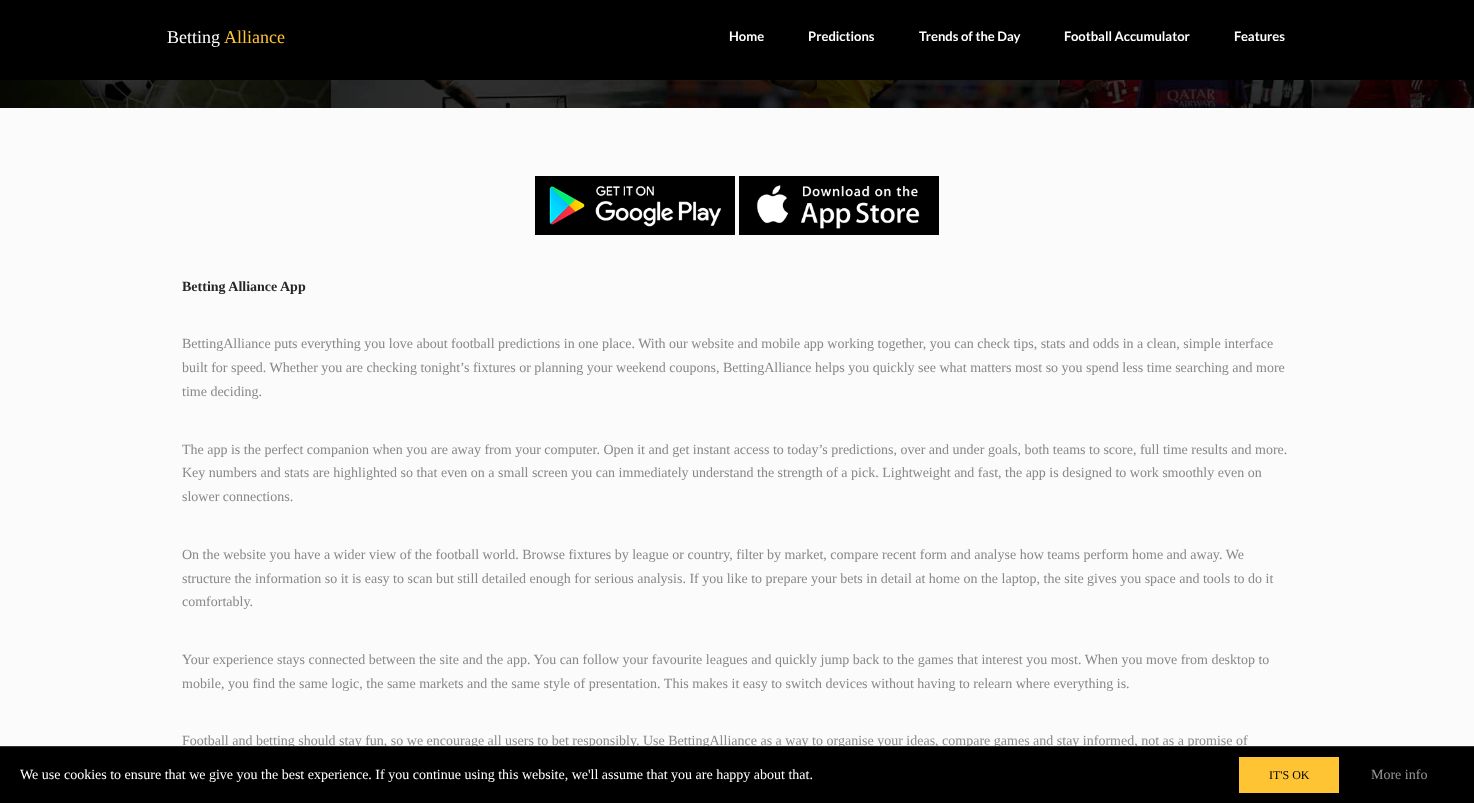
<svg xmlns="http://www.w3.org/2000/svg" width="1474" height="803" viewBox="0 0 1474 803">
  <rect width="100%" height="100%" fill="#fbfbfb"/>
  <rect x="0" y="0" width="1474" height="80" fill="#000000"/>
  <text x="167" y="43" font-family="Liberation Serif" font-size="18" fill="#ffffff">Betting</text>
  <text x="224" y="43" font-family="Liberation Serif" font-size="18" fill="#ffc434">Alliance</text>
  <text x="729" y="41" font-family="Lato" font-size="13" font-weight="bold" fill="#ffffff">Home</text>
  <text x="808" y="41" font-family="Lato" font-size="13" font-weight="bold" fill="#ffffff">Predictions</text>
  <text x="919" y="41" font-family="Lato" font-size="13" font-weight="bold" fill="#ffffff">Trends of the Day</text>
  <text x="1064" y="41" font-family="Lato" font-size="13" font-weight="bold" fill="#ffffff">Football Accumulator</text>
  <text x="1234" y="41" font-family="Lato" font-size="13" font-weight="bold" fill="#ffffff">Features</text>
  <image x="0" y="80" width="1474" height="28" href="img1.png"/>
  <image x="535" y="176" width="200" height="59" href="img2.png"/>
  <image x="739" y="176" width="200" height="59" href="img3.png"/>
  <text x="182" y="291" font-family="Liberation Serif" font-size="14" font-weight="bold" fill="#272727">Betting Alliance App</text>
  <text x="182" y="348" font-family="Liberation Serif" font-size="14" fill="#888888">BettingAlliance puts everything you love about football predictions in one place. With our website and mobile app working together, you can check tips, stats and odds in a clean, simple interface</text>
  <text x="182" y="372" font-family="Liberation Serif" font-size="14" fill="#888888">built for speed. Whether you are checking tonight’s fixtures or planning your weekend coupons, BettingAlliance helps you quickly see what matters most so you spend less time searching and more</text>
  <text x="182" y="396" font-family="Liberation Serif" font-size="14" fill="#888888">time deciding.</text>
  <text x="182" y="454" font-family="Liberation Serif" font-size="14" fill="#888888">The app is the perfect companion when you are away from your computer. Open it and get instant access to today’s predictions, over and under goals, both teams to score, full time results and more.</text>
  <text x="182" y="477" font-family="Liberation Serif" font-size="14" fill="#888888">Key numbers and stats are highlighted so that even on a small screen you can immediately understand the strength of a pick. Lightweight and fast, the app is designed to work smoothly even on</text>
  <text x="182" y="501" font-family="Liberation Serif" font-size="14" fill="#888888">slower connections.</text>
  <text x="182" y="559" font-family="Liberation Serif" font-size="14" fill="#888888">On the website you have a wider view of the football world. Browse fixtures by league or country, filter by market, compare recent form and analyse how teams perform home and away. We</text>
  <text x="182" y="583" font-family="Liberation Serif" font-size="14" fill="#888888">structure the information so it is easy to scan but still detailed enough for serious analysis. If you like to prepare your bets in detail at home on the laptop, the site gives you space and tools to do it</text>
  <text x="182" y="606" font-family="Liberation Serif" font-size="14" fill="#888888">comfortably.</text>
  <text x="182" y="664" font-family="Liberation Serif" font-size="14" fill="#888888">Your experience stays connected between the site and the app. You can follow your favourite leagues and quickly jump back to the games that interest you most. When you move from desktop to</text>
  <text x="182" y="688" font-family="Liberation Serif" font-size="14" fill="#888888">mobile, you find the same logic, the same markets and the same style of presentation. This makes it easy to switch devices without having to relearn where everything is.</text>
  <text x="182" y="745" font-family="Liberation Serif" font-size="14" fill="#888888">Football and betting should stay fun, so we encourage all users to bet responsibly. Use BettingAlliance as a way to organise your ideas, compare games and stay informed, not as a promise of</text>
  <rect x="0" y="747" width="1474" height="56" fill="#000000"/>
  <rect x="0" y="746" width="1474" height="1" fill="#333333"/>
  <text x="20" y="779" font-family="Liberation Serif" font-size="14" fill="#ffffff">We use cookies to ensure that we give you the best experience. If you continue using this website, we'll assume that you are happy about that.</text>
  <rect x="1239" y="757" width="100" height="36" fill="#ffc434"/>
  <text x="1269" y="779" font-family="Liberation Serif" font-size="12" fill="#000000">IT'S OK</text>
  <text x="1371" y="779" font-family="Liberation Serif" font-size="14" fill="#979797">More info</text>
</svg>
